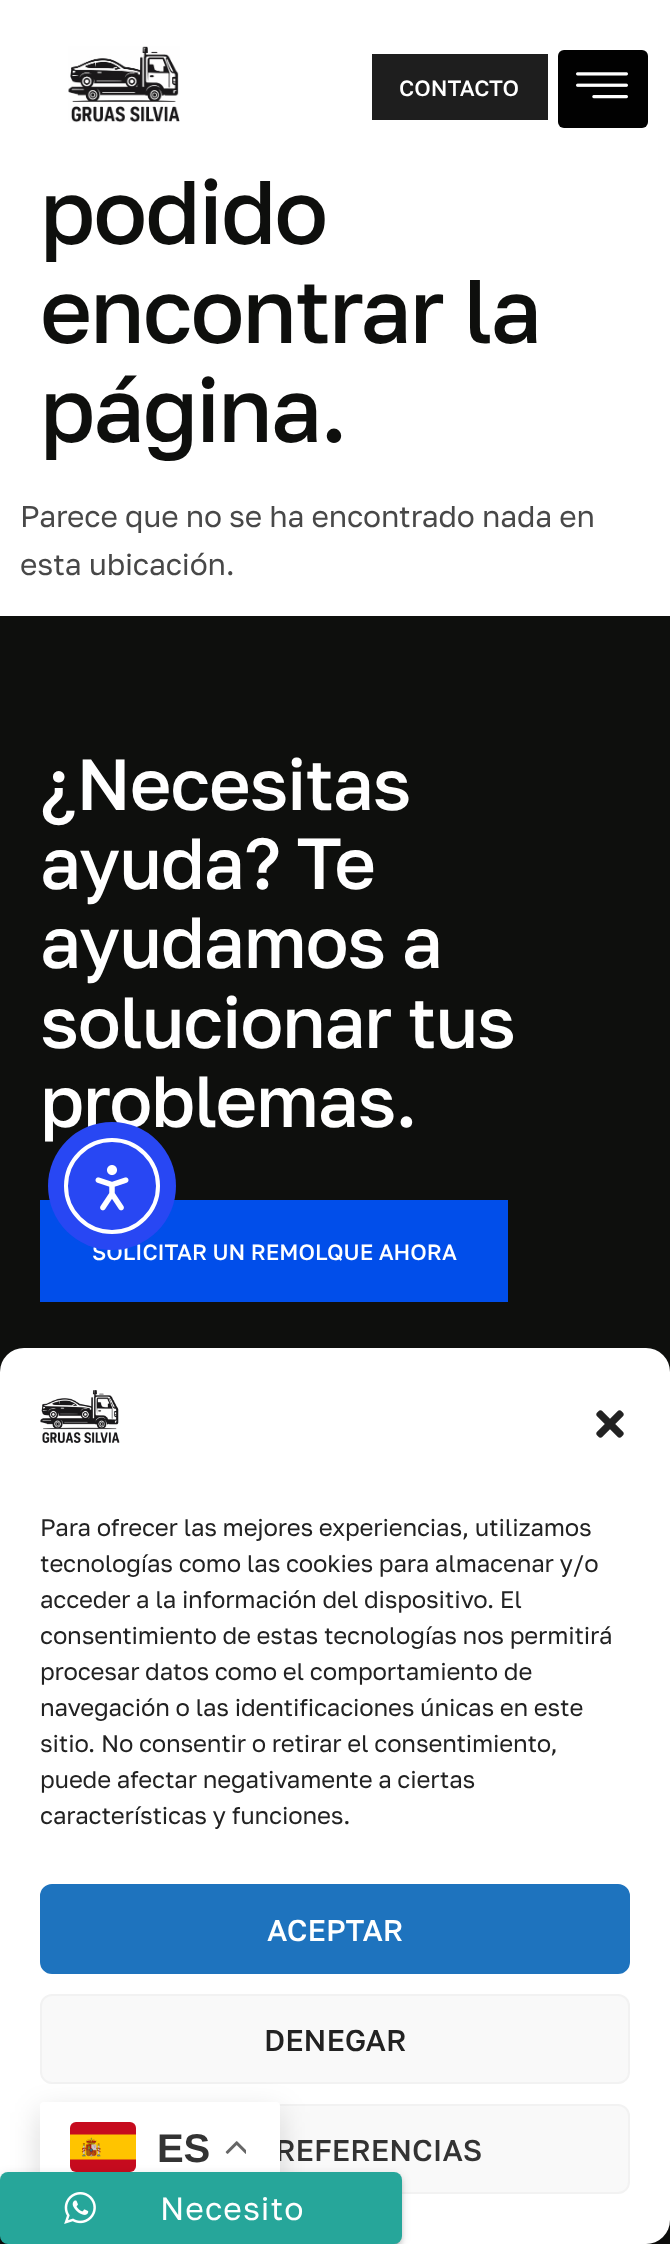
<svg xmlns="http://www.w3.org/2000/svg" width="670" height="2244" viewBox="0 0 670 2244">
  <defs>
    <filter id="blur1" x="-50%" y="-200%" width="200%" height="500%"><feGaussianBlur stdDeviation="6"/></filter>
    <filter id="blur2" x="-50%" y="-200%" width="200%" height="500%"><feGaussianBlur stdDeviation="5"/></filter>
    <filter id="blur3" x="-50%" y="-200%" width="200%" height="500%"><feGaussianBlur stdDeviation="15"/></filter>
    <filter id="blur4" x="-50%" y="-200%" width="200%" height="500%"><feGaussianBlur stdDeviation="1"/></filter>
    <filter id="blur5" x="-50%" y="-200%" width="200%" height="500%"><feGaussianBlur stdDeviation="2"/></filter>
  </defs>
  <rect width="100%" height="100%" fill="#ffffff"/>
  <image x="68" y="46" width="112" height="77" href="img1.png"/>
  <rect x="372" y="54" width="176" height="66" fill="#1e1e1e"/>
  <text x="399" y="96" font-family="Golos Text" font-size="22" font-weight="500" fill="#ffffff">CONTACTO</text>
  <rect x="558" y="50" width="90" height="78" rx="6" fill="#010101"/>
  <image x="576" y="72" width="52" height="27" href="img2.png"/>
  <text x="40" y="244" font-family="Golos Text" font-size="90" font-weight="500" letter-spacing="-2" fill="#0e0f0d">podido</text>
  <text x="40" y="343" font-family="Golos Text" font-size="90" font-weight="500" letter-spacing="-2" fill="#0e0f0d">encontrar la</text>
  <text x="40" y="442" font-family="Golos Text" font-size="90" font-weight="500" letter-spacing="-2" fill="#0e0f0d">página.</text>
  <text x="20" y="527" font-family="Golos Text" font-size="30" letter-spacing="-0.2" fill="#484848">Parece que no se ha encontrado nada en</text>
  <text x="20" y="575" font-family="Golos Text" font-size="30" letter-spacing="-0.2" fill="#484848">esta ubicación.</text>
  <rect x="0" y="616" width="670" height="1628" fill="#0e0f0d"/>
  <text x="40" y="810" font-family="Golos Text" font-size="72" font-weight="500" letter-spacing="-1.25" fill="#ffffff">¿Necesitas</text>
  <text x="40" y="889" font-family="Golos Text" font-size="72" font-weight="500" letter-spacing="-1.25" fill="#ffffff">ayuda? Te</text>
  <text x="40" y="968" font-family="Golos Text" font-size="72" font-weight="500" letter-spacing="-1.25" fill="#ffffff">ayudamos a</text>
  <text x="40" y="1048" font-family="Golos Text" font-size="72" font-weight="500" letter-spacing="-1.25" fill="#ffffff">solucionar tus</text>
  <text x="40" y="1127" font-family="Golos Text" font-size="72" font-weight="500" letter-spacing="-1.25" fill="#ffffff">problemas.</text>
  <rect x="40" y="1200" width="468" height="102" fill="#014eea"/>
  <text x="92" y="1260" font-family="Golos Text" font-size="22" font-weight="500" fill="#ffffff">SOLICITAR UN REMOLQUE AHORA</text>
  <circle cx="112" cy="1186" r="64" fill="#2847f3"/>
  <circle cx="112" cy="1186" r="46" fill="none" stroke="#ffffff" stroke-width="4"/>
  <image x="95" y="1165" width="34" height="46" href="img3.png"/>
  <rect x="0" y="1360" width="670" height="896" rx="24" fill="#000000" fill-opacity="0.23" filter="url(#blur1)"/>
  <rect x="530" y="2096" width="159" height="120" rx="4" fill="#808080" filter="url(#blur2)"/>
  <rect x="0" y="1348" width="670" height="896" rx="24" fill="#ffffff"/>
  <image x="40" y="1390" width="80" height="53" href="img4.png"/>
  <image x="596" y="1410" width="28" height="28" href="img5.png"/>
  <text x="40" y="1536" font-family="Golos Text" font-size="24" letter-spacing="-0.2" fill="#222222">Para ofrecer las mejores experiencias, utilizamos</text>
  <text x="40" y="1572" font-family="Golos Text" font-size="24" letter-spacing="-0.2" fill="#222222">tecnologías como las cookies para almacenar y/o</text>
  <text x="40" y="1608" font-family="Golos Text" font-size="24" letter-spacing="-0.2" fill="#222222">acceder a la información del dispositivo. El</text>
  <text x="40" y="1644" font-family="Golos Text" font-size="24" letter-spacing="-0.2" fill="#222222">consentimiento de estas tecnologías nos permitirá</text>
  <text x="40" y="1680" font-family="Golos Text" font-size="24" letter-spacing="-0.2" fill="#222222">procesar datos como el comportamiento de</text>
  <text x="40" y="1716" font-family="Golos Text" font-size="24" letter-spacing="-0.2" fill="#222222">navegación o las identificaciones únicas en este</text>
  <text x="40" y="1752" font-family="Golos Text" font-size="24" letter-spacing="-0.2" fill="#222222">sitio. No consentir o retirar el consentimiento,</text>
  <text x="40" y="1788" font-family="Golos Text" font-size="24" letter-spacing="-0.2" fill="#222222">puede afectar negativamente a ciertas</text>
  <text x="40" y="1824" font-family="Golos Text" font-size="24" letter-spacing="-0.2" fill="#222222">características y funciones.</text>
  <rect x="41" y="1885" width="588" height="88" rx="11" fill="#1e73be" stroke="#1e73be" stroke-width="2"/>
  <text x="267" y="1941" font-family="Golos Text" font-size="30" font-weight="500" fill="#ffffff">ACEPTAR</text>
  <rect x="41" y="1995" width="588" height="88" rx="11" fill="#f9f9f9" stroke="#f2f2f2" stroke-width="2"/>
  <text x="264" y="2051" font-family="Golos Text" font-size="30" font-weight="500" fill="#222222">DENEGAR</text>
  <rect x="41" y="2105" width="588" height="88" rx="11" fill="#f9f9f9" stroke="#f2f2f2" stroke-width="2"/>
  <text x="275" y="2161" font-family="Golos Text" font-size="30" font-weight="500" fill="#333333">REFERENCIAS</text>
  <rect x="40" y="2112" width="240" height="90" rx="4" fill="#000000" fill-opacity="0.15" filter="url(#blur3)"/>
  <rect x="40" y="2102" width="240" height="90" rx="4" fill="#ffffff"/>
  <image x="70" y="2122" width="66" height="50" href="img6.png"/>
  <text x="157" y="2162" font-family="Liberation Sans" font-size="40" font-weight="bold" letter-spacing="-0.2" fill="#333333">ES</text>
  <image x="225" y="2141" width="21" height="13" href="img7.png"/>
  <rect x="4" y="2182" width="394" height="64" rx="4" fill="#000000" fill-opacity="0.2" filter="url(#blur4)"/>
  <rect x="0" y="2174" width="402" height="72" rx="8" fill="#000000" fill-opacity="0.12" filter="url(#blur2)"/>
  <rect x="0" y="2176" width="402" height="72" rx="8" fill="#000000" fill-opacity="0.14" filter="url(#blur5)"/>
  <rect x="0" y="2172" width="402" height="72" rx="8" fill="#26a69a"/>
  <image x="64" y="2192" width="32" height="32" href="img8.png"/>
  <text x="160" y="2220" font-family="Golos Text" font-size="32" letter-spacing="1" fill="#ffffff">Necesito</text>
</svg>
